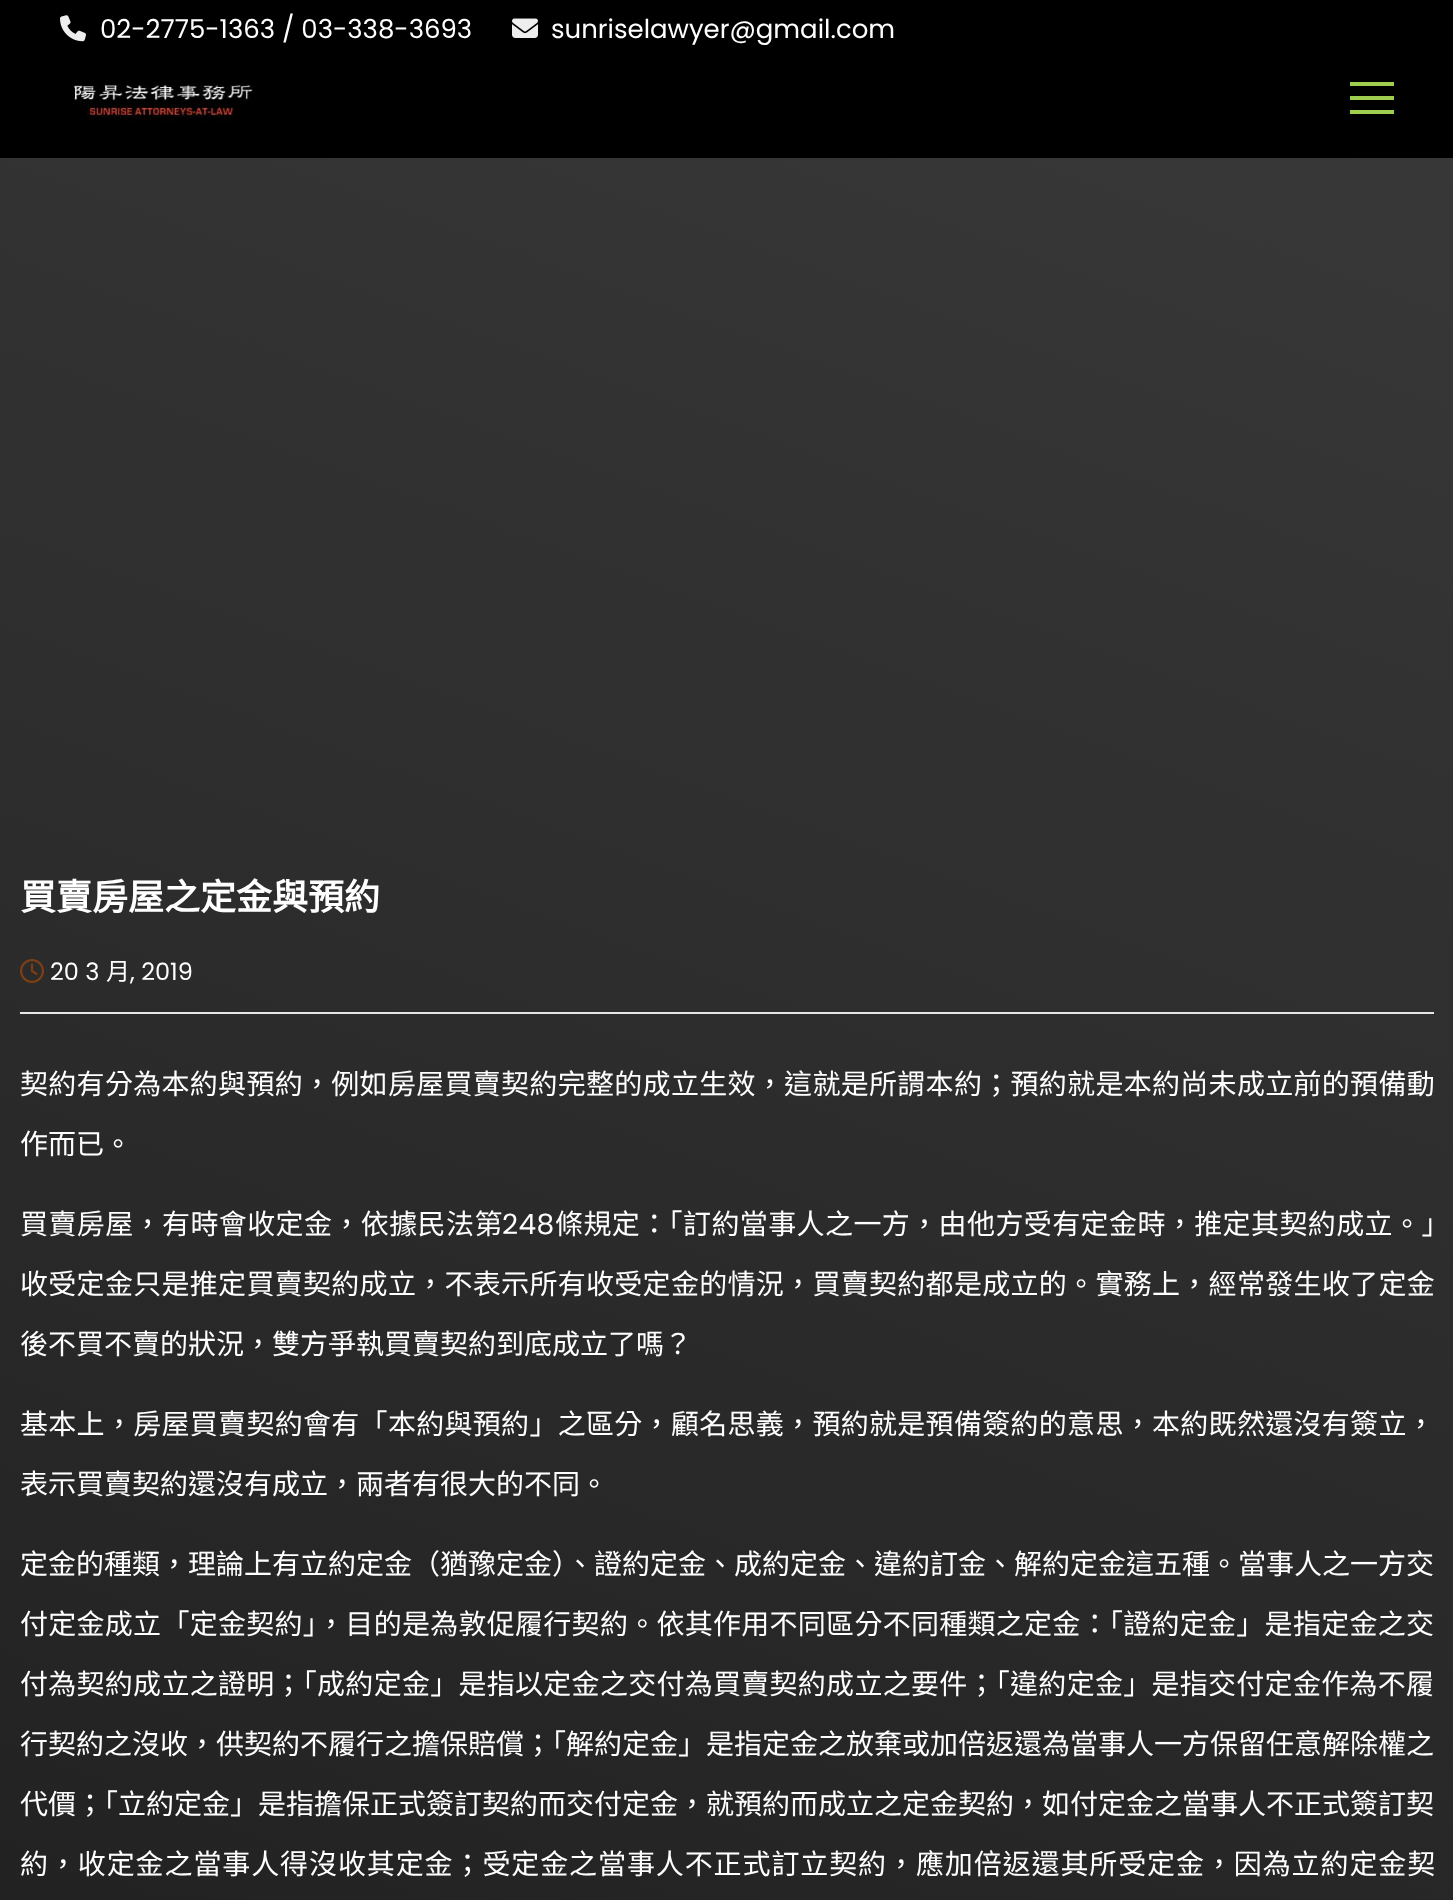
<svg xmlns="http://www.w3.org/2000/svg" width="1453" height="1900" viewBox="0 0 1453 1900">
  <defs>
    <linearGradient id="g1" gradientUnits="userSpaceOnUse" x1="-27" y1="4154" x2="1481" y2="10"><stop offset="0" stop-color="#0d0d0d"/><stop offset="1" stop-color="#393939"/></linearGradient>
  </defs>
  <rect width="100%" height="100%" fill="#ffffff"/>
  <rect x="0" y="158" width="1453" height="1742" fill="url(#g1)"/>
  <rect x="0" y="0" width="1453" height="158" fill="#000000"/>
  <image x="60" y="15" width="26" height="27" href="img1.png"/>
  <text x="100" y="38" font-family="Poppins" font-size="26" fill="#ffffff">02-2775-1363 / 03-338-3693</text>
  <image x="512" y="18" width="26" height="20" href="img2.png"/>
  <text x="551" y="38" font-family="Poppins" font-size="26" fill="#ffffff">sunriselawyer@gmail.com</text>
  <image x="73" y="84" width="180" height="41" href="img3.png"/>
  <rect x="1350" y="82" width="44" height="4" fill="#9fce4e"/>
  <rect x="1350" y="96" width="44" height="4" fill="#9fce4e"/>
  <rect x="1350" y="110" width="44" height="4" fill="#9fce4e"/>
  <rect x="20" y="1012" width="1414" height="2" fill="#e6e6e6"/>
  <text x="20" y="910" font-family="Noto Sans CJK TC" font-size="36" font-weight="bold" fill="#ffffff">買賣房屋之定金與預約</text>
  <image x="20" y="959" width="24" height="24" href="img4.png"/>
  <text x="50" y="980" font-family="Poppins" font-size="24" fill="#ffffff">20 3</text>
  <text x="106" y="980" font-family="Noto Sans CJK TC" font-size="24" fill="#ffffff">月</text>
  <text x="130" y="980" font-family="Poppins" font-size="24" fill="#ffffff">, 2019</text>
  <text x="20" y="1094" font-family="Noto Sans CJK TC" font-size="28" letter-spacing="0.3" fill="#ffffff">契約有分為本約與預約，例如房屋買賣契約完整的成立生效，這就是所謂本約；預約就是本約尚未成立前的預備動</text>
  <text x="20" y="1154" font-family="Noto Sans CJK TC" font-size="28" fill="#ffffff">作而已。</text>
  <text x="20" y="1234" font-family="Noto Sans CJK TC" font-size="28" letter-spacing="0.4" fill="#ffffff">買賣房屋，有時會收定金，依據民法第</text>
  <text x="502" y="1234" font-family="Poppins" font-size="28" letter-spacing="0.4" fill="#ffffff">248</text>
  <text x="555" y="1234" font-family="Noto Sans CJK TC" font-size="28" letter-spacing="0.4" fill="#ffffff">條規定：「訂約當事人之一方，由他方受有定金時，推定其契約成立。」</text>
  <text x="20" y="1294" font-family="Noto Sans CJK TC" font-size="28" letter-spacing="0.3" fill="#ffffff">收受定金只是推定買賣契約成立，不表示所有收受定金的情況，買賣契約都是成立的。實務上，經常發生收了定金</text>
  <text x="20" y="1354" font-family="Noto Sans CJK TC" font-size="28" fill="#ffffff">後不買不賣的狀況，雙方爭執買賣契約到底成立了嗎？</text>
  <text x="20" y="1434" font-family="Noto Sans CJK TC" font-size="28" letter-spacing="0.3" fill="#ffffff">基本上，房屋買賣契約會有「本約與預約」之區分，顧名思義，預約就是預備簽約的意思，本約既然還沒有簽立，</text>
  <text x="20" y="1494" font-family="Noto Sans CJK TC" font-size="28" fill="#ffffff">表示買賣契約還沒有成立，兩者有很大的不同。</text>
  <text x="20" y="1574" font-family="Noto Sans CJK TC" font-size="28" fill="#ffffff">定金的種類，理論上有立約定金（猶豫定金）、證約定金、成約定金、違約訂金、解約定金這五種。當事人之一方交</text>
  <text x="20" y="1634" font-family="Noto Sans CJK TC" font-size="28" letter-spacing="0.28" fill="#ffffff">付定金成立「定金契約」，目的是為敦促履行契約。依其作用不同區分不同種類之定金：「證約定金」是指定金之交</text>
  <text x="20" y="1694" font-family="Noto Sans CJK TC" font-size="28" letter-spacing="0.28" fill="#ffffff">付為契約成立之證明；「成約定金」是指以定金之交付為買賣契約成立之要件；「違約定金」是指交付定金作為不履</text>
  <text x="20" y="1754" font-family="Noto Sans CJK TC" font-size="28" fill="#ffffff">行契約之沒收，供契約不履行之擔保賠償；「解約定金」是指定金之放棄或加倍返還為當事人一方保留任意解除權之</text>
  <text x="20" y="1814" font-family="Noto Sans CJK TC" font-size="28" fill="#ffffff">代價；「立約定金」是指擔保正式簽訂契約而交付定金，就預約而成立之定金契約，如付定金之當事人不正式簽訂契</text>
  <text x="20" y="1874" font-family="Noto Sans CJK TC" font-size="28" letter-spacing="0.9" fill="#ffffff">約，收定金之當事人得沒收其定金；受定金之當事人不正式訂立契約，應加倍返還其所受定金，因為立約定金契</text>
</svg>
